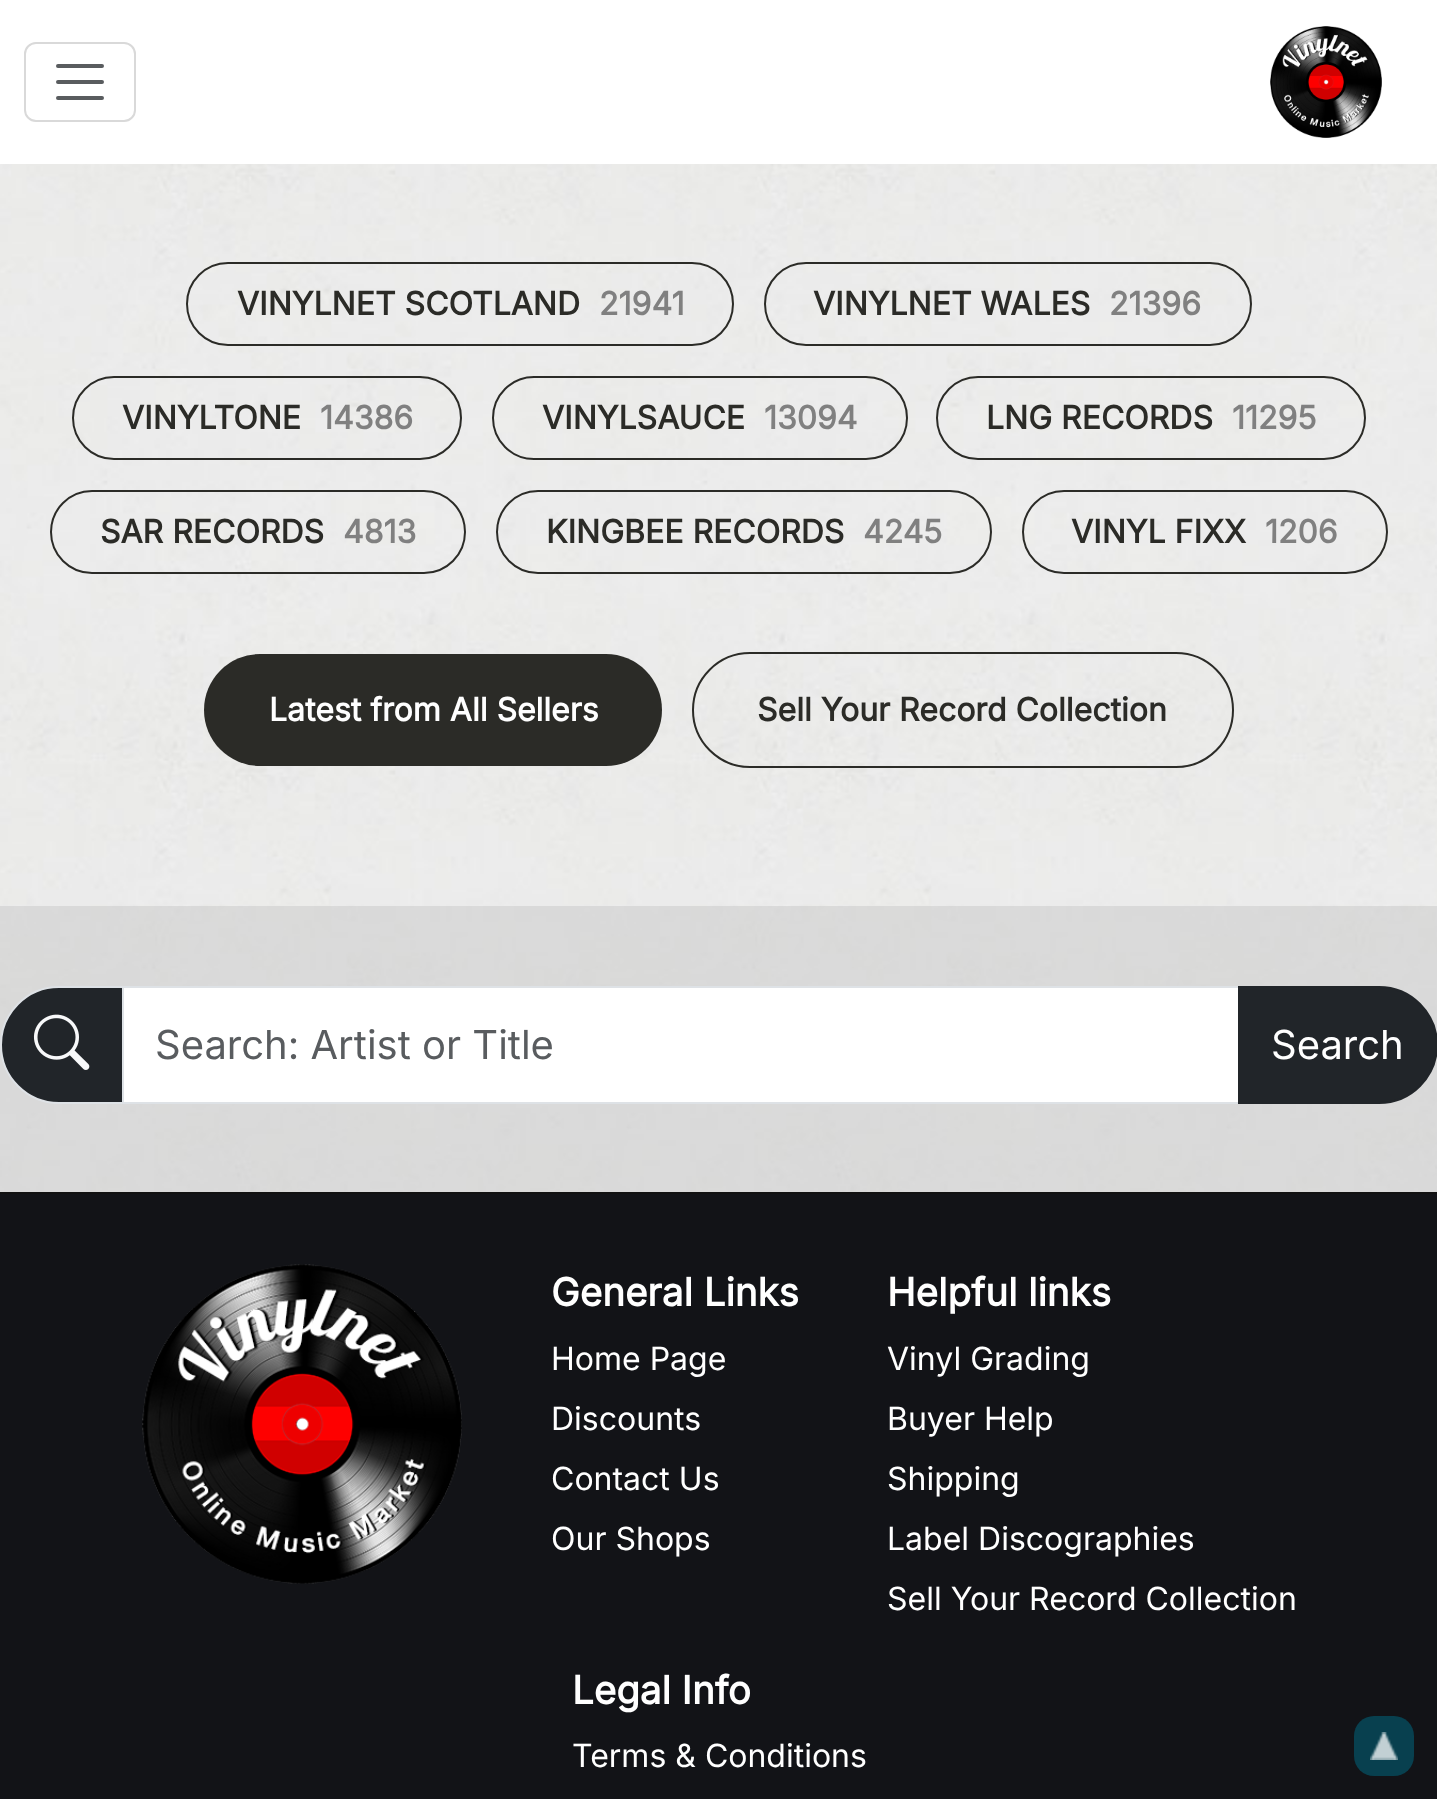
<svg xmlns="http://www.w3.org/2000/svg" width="1437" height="1799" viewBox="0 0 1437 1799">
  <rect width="100%" height="100%" fill="#ffffff"/>
  <image x="0" y="164" width="1437" height="1028" href="img1.png"/>
  <rect x="25" y="43" width="110" height="78" rx="11" fill="none" stroke="#d9d9d9" stroke-width="2"/>
  <path d="M58 66H102M58 82H102M58 98H102" fill="none" stroke="#595c5f" stroke-width="4" stroke-linecap="round"/>
  <image x="1270" y="26" width="112" height="112" href="img2.png"/>
  <rect x="187" y="263" width="546" height="82" rx="41" fill="none" stroke="#2b2b27" stroke-width="2"/>
  <text x="237" y="315" font-family="Inter" font-size="32" font-weight="bold" fill="#2b2b27">VINYLNET SCOTLAND</text>
  <text x="599" y="315" font-family="Inter" font-size="32" font-weight="bold" fill="#808080">21941</text>
  <rect x="765" y="263" width="486" height="82" rx="41" fill="none" stroke="#2b2b27" stroke-width="2"/>
  <text x="813" y="315" font-family="Inter" font-size="32" font-weight="bold" fill="#2b2b27">VINYLNET WALES</text>
  <text x="1109" y="315" font-family="Inter" font-size="32" font-weight="bold" fill="#808080">21396</text>
  <rect x="73" y="377" width="388" height="82" rx="41" fill="none" stroke="#2b2b27" stroke-width="2"/>
  <text x="122" y="429" font-family="Inter" font-size="32" font-weight="bold" fill="#2b2b27">VINYLTONE</text>
  <text x="320" y="429" font-family="Inter" font-size="32" font-weight="bold" fill="#808080">14386</text>
  <rect x="493" y="377" width="414" height="82" rx="41" fill="none" stroke="#2b2b27" stroke-width="2"/>
  <text x="542" y="429" font-family="Inter" font-size="32" font-weight="bold" fill="#2b2b27">VINYLSAUCE</text>
  <text x="764" y="429" font-family="Inter" font-size="32" font-weight="bold" fill="#808080">13094</text>
  <rect x="937" y="377" width="428" height="82" rx="41" fill="none" stroke="#2b2b27" stroke-width="2"/>
  <text x="986" y="429" font-family="Inter" font-size="32" font-weight="bold" fill="#2b2b27">LNG RECORDS</text>
  <text x="1232" y="429" font-family="Inter" font-size="32" font-weight="bold" fill="#808080">11295</text>
  <rect x="51" y="491" width="414" height="82" rx="41" fill="none" stroke="#2b2b27" stroke-width="2"/>
  <text x="100" y="543" font-family="Inter" font-size="32" font-weight="bold" fill="#2b2b27">SAR RECORDS</text>
  <text x="343" y="543" font-family="Inter" font-size="32" font-weight="bold" fill="#808080">4813</text>
  <rect x="497" y="491" width="494" height="82" rx="41" fill="none" stroke="#2b2b27" stroke-width="2"/>
  <text x="546" y="543" font-family="Inter" font-size="32" font-weight="bold" fill="#2b2b27">KINGBEE RECORDS</text>
  <text x="863" y="543" font-family="Inter" font-size="32" font-weight="bold" fill="#808080">4245</text>
  <rect x="1023" y="491" width="364" height="82" rx="41" fill="none" stroke="#2b2b27" stroke-width="2"/>
  <text x="1071" y="543" font-family="Inter" font-size="32" font-weight="bold" fill="#2b2b27">VINYL FIXX</text>
  <text x="1265" y="543" font-family="Inter" font-size="32" font-weight="bold" fill="#808080">1206</text>
  <rect x="204" y="654" width="458" height="112" rx="56" fill="#2b2b27"/>
  <text x="269" y="721" font-family="Inter" font-size="32" font-weight="bold" fill="#ffffff">Latest from All Sellers</text>
  <rect x="693" y="653" width="540" height="114" rx="57" fill="none" stroke="#2b2b27" stroke-width="2"/>
  <text x="757" y="721" font-family="Inter" font-size="32" font-weight="bold" fill="#2b2b27">Sell Your Record Collection</text>
  <rect x="0" y="906" width="1437" height="286" fill="#c8c8c8" fill-opacity="0.5"/>
  <path d="M59 987H123V1103H59C27 1103 1 1077 1 1045C1 1013 27 987 59 987Z" fill="#212529" stroke="#dee2e6" stroke-width="2"/>
  <image x="33" y="1014" width="57" height="56" href="img3.png"/>
  <rect x="123" y="987" width="1116" height="116" fill="#ffffff" stroke="#dee2e6" stroke-width="2"/>
  <text x="155" y="1059" font-family="Inter" font-size="40" fill="#595c5f">Search: Artist or Title</text>
  <path d="M1239 987H1379C1411 987 1437 1013 1437 1045C1437 1077 1411 1103 1379 1103H1239Z" fill="#212529" stroke="#212529" stroke-width="2"/>
  <text x="1271" y="1059" font-family="Inter" font-size="40" fill="#ffffff">Search</text>
  <rect x="0" y="1194" width="1437" height="605" fill="#121317"/>
  <rect x="0" y="1192" width="1437" height="2" fill="#111111"/>
  <image x="142" y="1264" width="320" height="320" href="img4.png"/>
  <text x="551" y="1306" font-family="Inter" font-size="38.5" font-weight="bold" fill="#ffffff">General Links</text>
  <text x="551" y="1370" font-family="Inter" font-size="32" fill="#ffffff">Home Page</text>
  <text x="551" y="1430" font-family="Inter" font-size="32" fill="#ffffff">Discounts</text>
  <text x="551" y="1490" font-family="Inter" font-size="32" fill="#ffffff">Contact Us</text>
  <text x="551" y="1550" font-family="Inter" font-size="32" fill="#ffffff">Our Shops</text>
  <text x="887" y="1306" font-family="Inter" font-size="38.5" font-weight="bold" fill="#ffffff">Helpful links</text>
  <text x="887" y="1370" font-family="Inter" font-size="32" fill="#ffffff">Vinyl Grading</text>
  <text x="887" y="1430" font-family="Inter" font-size="32" fill="#ffffff">Buyer Help</text>
  <text x="887" y="1490" font-family="Inter" font-size="32" fill="#ffffff">Shipping</text>
  <text x="887" y="1550" font-family="Inter" font-size="32" fill="#ffffff">Label Discographies</text>
  <text x="887" y="1610" font-family="Inter" font-size="32" fill="#ffffff">Sell Your Record Collection</text>
  <text x="572" y="1704" font-family="Inter" font-size="38.5" font-weight="bold" fill="#ffffff">Legal Info</text>
  <text x="572" y="1767" font-family="Inter" font-size="32" fill="#ffffff">Terms &amp; Conditions</text>
  <rect x="1354" y="1716" width="60" height="60" rx="20" fill="#08404f"/>
  <image x="1370" y="1732" width="28" height="28" href="img5.png"/>
</svg>
